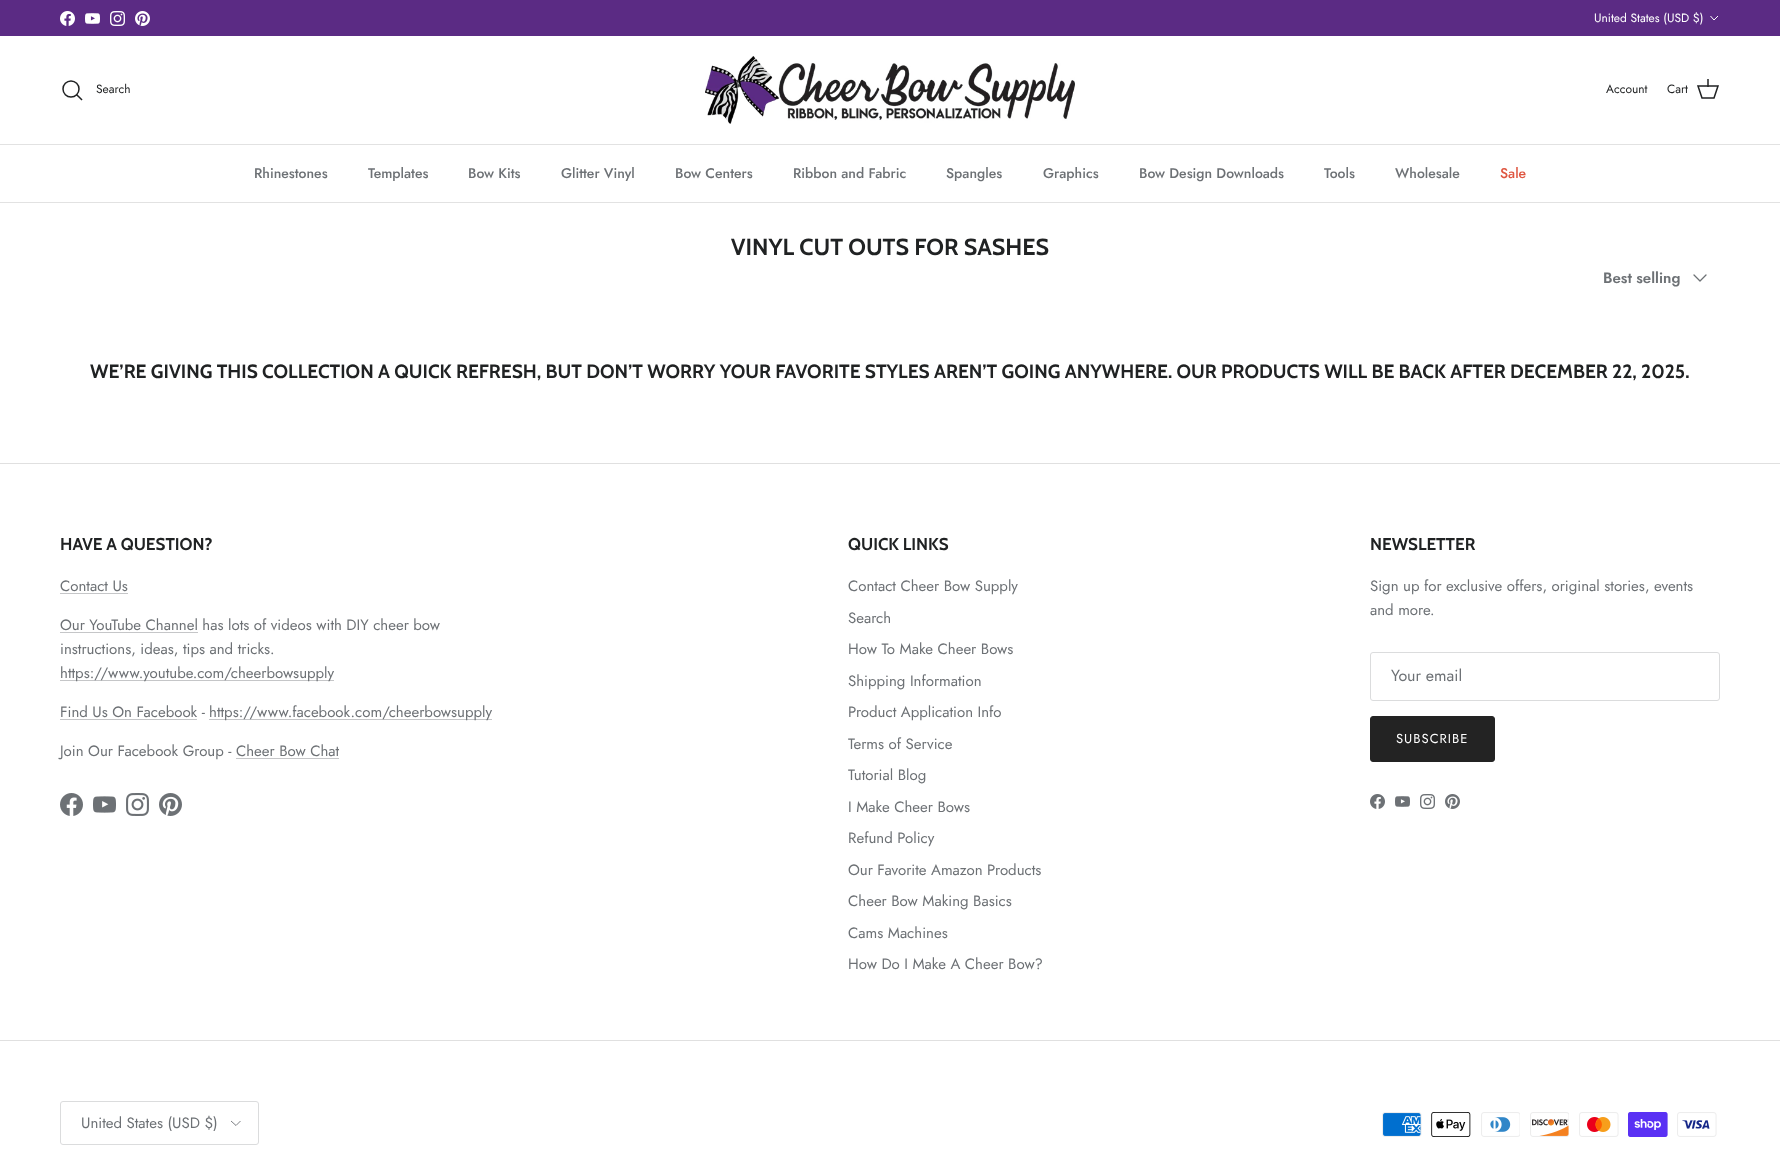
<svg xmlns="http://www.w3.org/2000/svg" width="1780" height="1164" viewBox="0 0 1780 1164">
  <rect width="100%" height="100%" fill="#ffffff"/>
  <rect x="0" y="0" width="1780" height="36" fill="#5b2b84"/>
  <image x="60" y="11" width="15" height="15" href="img1.png"/>
  <image x="85" y="13" width="15" height="11" href="img2.png"/>
  <image x="110" y="11" width="15" height="15" href="img3.png"/>
  <image x="135" y="11" width="15" height="15" href="img4.png"/>
  <text x="1594" y="22" font-family="Jost" font-size="12" fill="#ffffff">United States (USD $)</text>
  <path d="M1718 16L1714 20L1710.5 16" fill="none" stroke="#ffffff"/>
  <rect x="0" y="144" width="1780" height="1" fill="#e2e2e2"/>
  <circle cx="71" cy="89" r="8" fill="none" stroke="#202223" stroke-width="1.5"/>
  <text x="96" y="93" font-family="Jost" font-size="12" fill="#202223">Search</text>
  <path d="M77 95L81.5 99.5" fill="none" stroke="#202223" stroke-width="1.5" stroke-linecap="square"/>
  <image x="705" y="56" width="370" height="68" href="img5.png"/>
  <text x="1606" y="93" font-family="Jost" font-size="12" fill="#202223">Account</text>
  <text x="1667" y="93" font-family="Jost" font-size="12" fill="#202223">Cart</text>
  <path d="M1698 86H1718L1714 98H1702Z" fill="none" stroke="#202223" stroke-width="1.5"/>
  <rect x="1707" y="79" width="2" height="8" fill="#202223" fill-opacity="0.75"/>
  <rect x="0" y="202" width="1780" height="1" fill="#e2e2e2"/>
  <text x="254" y="178" font-family="Jost" font-size="14" font-weight="500" fill="#6d7175">Rhinestones</text>
  <text x="368" y="178" font-family="Jost" font-size="14" font-weight="500" fill="#6d7175">Templates</text>
  <text x="468" y="178" font-family="Jost" font-size="14" font-weight="500" fill="#6d7175">Bow Kits</text>
  <text x="561" y="178" font-family="Jost" font-size="14" font-weight="500" fill="#6d7175">Glitter Vinyl</text>
  <text x="675" y="178" font-family="Jost" font-size="14" font-weight="500" fill="#6d7175">Bow Centers</text>
  <text x="793" y="178" font-family="Jost" font-size="14" font-weight="500" fill="#6d7175">Ribbon and Fabric</text>
  <text x="946" y="178" font-family="Jost" font-size="14" font-weight="500" fill="#6d7175">Spangles</text>
  <text x="1043" y="178" font-family="Jost" font-size="14" font-weight="500" fill="#6d7175">Graphics</text>
  <text x="1139" y="178" font-family="Jost" font-size="14" font-weight="500" fill="#6d7175">Bow Design Downloads</text>
  <text x="1324" y="178" font-family="Jost" font-size="14" font-weight="500" fill="#6d7175">Tools</text>
  <text x="1395" y="178" font-family="Jost" font-size="14" font-weight="500" fill="#6d7175">Wholesale</text>
  <text x="1500" y="178" font-family="Jost" font-size="14" font-weight="500" fill="#df5641">Sale</text>
  <text x="731" y="255" font-family="Cabin" font-size="23.25" font-weight="bold" fill="#202223">VINYL CUT OUTS FOR SASHES</text>
  <text x="1603" y="283" font-family="Jost" font-size="15" font-weight="600" fill="#6d7175">Best selling</text>
  <path d="M1694 275L1700 281L1706 275" fill="none" stroke="#6d7175" stroke-width="1.3" stroke-linecap="round" stroke-linejoin="round"/>
  <text x="90" y="378" font-family="Cabin" font-size="19.15" font-weight="bold" fill="#202223">WE’RE GIVING THIS COLLECTION A QUICK REFRESH, BUT DON’T WORRY YOUR FAVORITE STYLES AREN’T GOING ANYWHERE. OUR PRODUCTS WILL BE BACK AFTER DECEMBER 22, 2025.</text>
  <rect x="0" y="463" width="1780" height="1" fill="#e0e0e0"/>
  <text x="60" y="550" font-family="Cabin" font-size="17" font-weight="bold" fill="#202223">HAVE A QUESTION?</text>
  <text x="60" y="591" font-family="Jost" font-size="15" fill="#6d7175">Contact Us</text>
  <rect x="60" y="593" width="68" height="1" fill="#c5c6c8"/>
  <text x="60" y="630" font-family="Jost" font-size="15" fill="#6d7175">Our YouTube Channel has lots of videos with DIY cheer bow</text>
  <rect x="60" y="632" width="138" height="1" fill="#c5c6c8"/>
  <text x="60" y="654" font-family="Jost" font-size="15" fill="#6d7175">instructions, ideas, tips and tricks.</text>
  <rect x="60" y="680" width="274" height="1" fill="#c5c6c8"/>
  <text x="60" y="678" font-family="Jost" font-size="15" fill="#6d7175">https://www.youtube.com/cheerbowsupply</text>
  <text x="60" y="717" font-family="Jost" font-size="15" fill="#6d7175">Find Us On Facebook -</text>
  <rect x="60" y="719" width="137" height="1" fill="#c5c6c8"/>
  <rect x="209" y="719" width="283" height="1" fill="#c5c6c8"/>
  <text x="209" y="717" font-family="Jost" font-size="15" fill="#6d7175">https://www.facebook.com/cheerbowsupply</text>
  <text x="60" y="756" font-family="Jost" font-size="15" fill="#6d7175">Join Our Facebook Group - Cheer Bow Chat</text>
  <rect x="236" y="758" width="103" height="1" fill="#c5c6c8"/>
  <image x="60" y="793" width="23" height="23" href="img6.png"/>
  <image x="93" y="796" width="23" height="17" href="img7.png"/>
  <image x="126" y="793" width="23" height="23" href="img8.png"/>
  <image x="159" y="793" width="23" height="23" href="img9.png"/>
  <text x="848" y="550" font-family="Cabin" font-size="17" font-weight="bold" fill="#202223">QUICK LINKS</text>
  <text x="848" y="591" font-family="Jost" font-size="15" fill="#6d7175">Contact Cheer Bow Supply</text>
  <text x="848" y="623" font-family="Jost" font-size="15" fill="#6d7175">Search</text>
  <text x="848" y="654" font-family="Jost" font-size="15" fill="#6d7175">How To Make Cheer Bows</text>
  <text x="848" y="686" font-family="Jost" font-size="15" fill="#6d7175">Shipping Information</text>
  <text x="848" y="717" font-family="Jost" font-size="15" fill="#6d7175">Product Application Info</text>
  <text x="848" y="749" font-family="Jost" font-size="15" fill="#6d7175">Terms of Service</text>
  <text x="848" y="780" font-family="Jost" font-size="15" fill="#6d7175">Tutorial Blog</text>
  <text x="848" y="812" font-family="Jost" font-size="15" fill="#6d7175">I Make Cheer Bows</text>
  <text x="848" y="843" font-family="Jost" font-size="15" fill="#6d7175">Refund Policy</text>
  <text x="848" y="875" font-family="Jost" font-size="15" fill="#6d7175">Our Favorite Amazon Products</text>
  <text x="848" y="906" font-family="Jost" font-size="15" fill="#6d7175">Cheer Bow Making Basics</text>
  <text x="848" y="938" font-family="Jost" font-size="15" fill="#6d7175">Cams Machines</text>
  <text x="848" y="969" font-family="Jost" font-size="15" fill="#6d7175">How Do I Make A Cheer Bow?</text>
  <text x="1370" y="550" font-family="Cabin" font-size="17" font-weight="bold" fill="#202223">NEWSLETTER</text>
  <text x="1370" y="591" font-family="Jost" font-size="15" fill="#6d7175">Sign up for exclusive offers, original stories, events</text>
  <text x="1370" y="615" font-family="Jost" font-size="15" fill="#6d7175">and more.</text>
  <rect x="1370.5" y="652.5" width="349" height="48" rx="2.5" fill="none" stroke="#dbdcdd"/>
  <text x="1391" y="681" font-family="Jost" font-size="16" fill="#6d7175">Your email</text>
  <rect x="1370.5" y="716.5" width="124" height="45" rx="2.5" fill="#232323" stroke="#232323"/>
  <text x="1396" y="743" font-family="Jost" font-size="13" letter-spacing="1" fill="#ffffff">SUBSCRIBE</text>
  <image x="1370" y="794" width="15" height="15" href="img10.png"/>
  <image x="1395" y="796" width="15" height="11" href="img11.png"/>
  <image x="1420" y="794" width="15" height="15" href="img12.png"/>
  <image x="1445" y="794" width="15" height="15" href="img13.png"/>
  <rect x="0" y="1040" width="1780" height="1" fill="#e0e0e0"/>
  <rect x="60.5" y="1101.5" width="198" height="43" rx="2.5" fill="none" stroke="#dbdcdd"/>
  <text x="81" y="1128" font-family="Jost" font-size="15" fill="#6d7175">United States (USD $)</text>
  <path d="M240.5 1121L236 1125.5L231 1121" fill="none" stroke="#6d7175" stroke-width="0.9"/>
  <image x="1382" y="1112" width="40" height="25" href="img14.png"/>
  <image x="1431" y="1112" width="40" height="25" href="img15.png"/>
  <image x="1481" y="1112" width="39" height="25" href="img16.png"/>
  <image x="1530" y="1112" width="39" height="25" href="img17.png"/>
  <image x="1579" y="1112" width="40" height="25" href="img18.png"/>
  <image x="1628" y="1112" width="40" height="25" href="img19.png"/>
  <image x="1677" y="1112" width="40" height="25" href="img20.png"/>
</svg>
